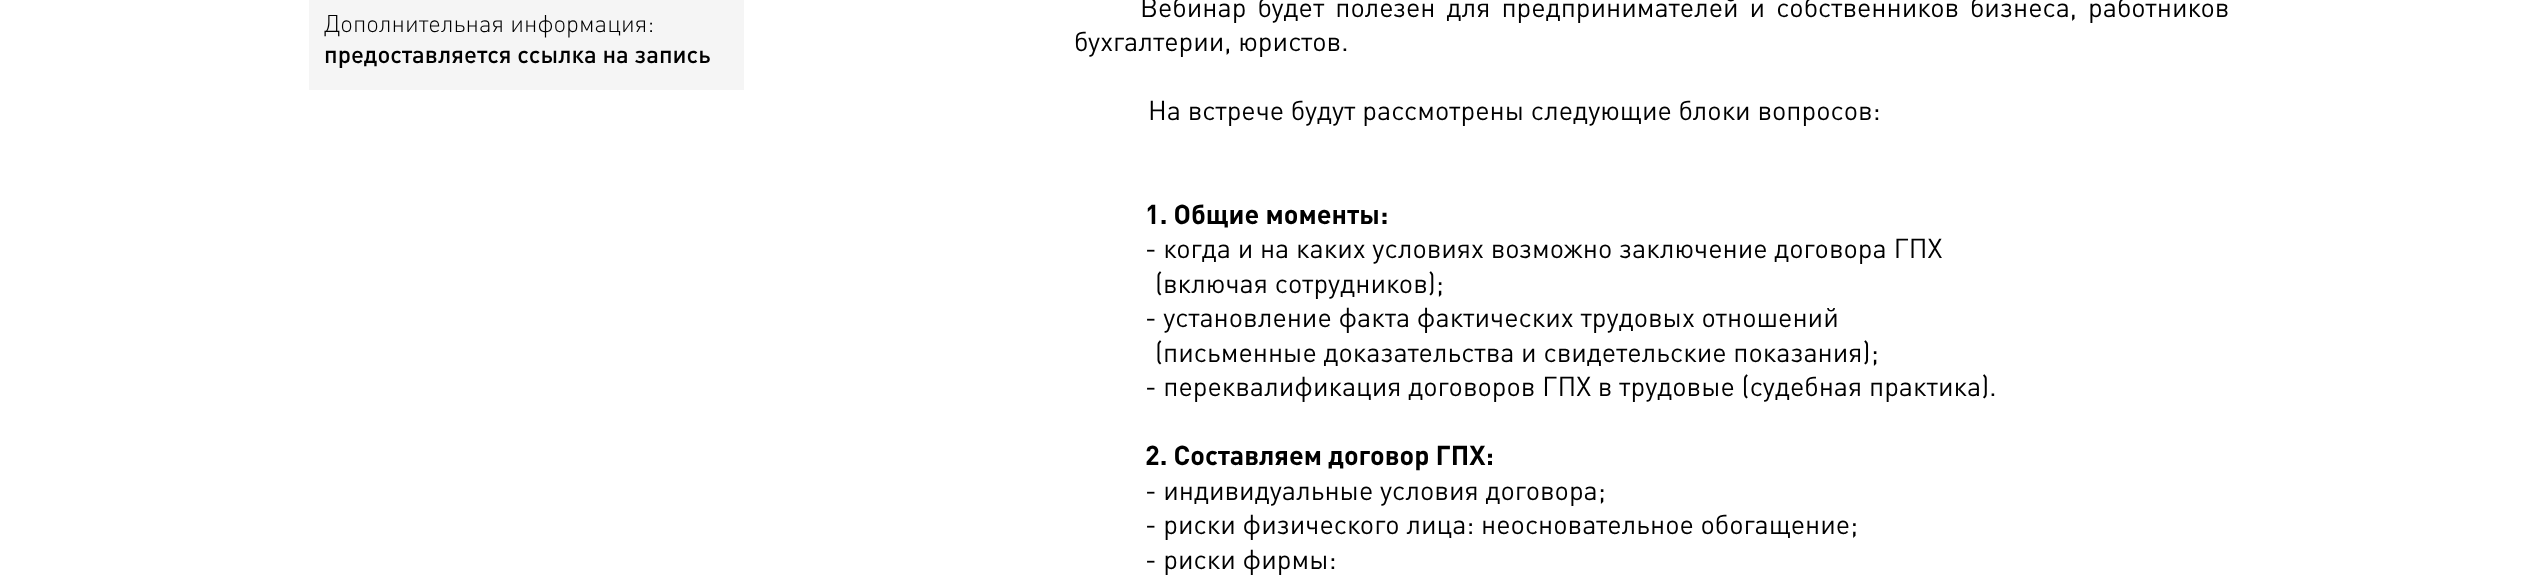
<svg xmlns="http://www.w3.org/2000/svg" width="2538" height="586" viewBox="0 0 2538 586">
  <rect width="100%" height="100%" fill="#ffffff"/>
  <rect x="309" y="0" width="435" height="90" fill="#f5f5f5"/>
  <text x="324" y="32" font-family="DIN" font-size="24" font-weight="300" fill="#000000">Дополнительная информация:</text>
  <text x="324" y="63" font-family="DIN" font-size="24" font-weight="500" fill="#000000">предоставляется ссылка на запись</text>
  <text x="1140" y="17" word-spacing="4.25" font-family="DIN" font-size="27" fill="#000000">Вебинар будет полезен для предпринимателей и собственников бизнеса, работников</text>
  <text x="1074" y="51" font-family="DIN" font-size="27" fill="#000000">бухгалтерии, юристов.</text>
  <text x="1148" y="120" font-family="DIN" font-size="27" fill="#000000">На встрече будут рассмотрены следующие блоки вопросов:</text>
  <text x="1145" y="224" font-family="DIN" font-size="27" font-weight="bold" fill="#000000">1. Общие моменты:</text>
  <text x="1145" y="258" font-family="DIN" font-size="27" fill="#000000">- когда и на каких условиях возможно заключение договора ГПХ</text>
  <text x="1155" y="293" font-family="DIN" font-size="27" fill="#000000">(включая сотрудников);</text>
  <text x="1145" y="327" font-family="DIN" font-size="27" fill="#000000">- установление факта фактических трудовых отношений</text>
  <text x="1155" y="362" font-family="DIN" font-size="27" fill="#000000">(письменные доказательства и свидетельские показания);</text>
  <text x="1145" y="396" font-family="DIN" font-size="27" fill="#000000">- переквалификация договоров ГПХ в трудовые (судебная практика).</text>
  <text x="1145" y="465" font-family="DIN" font-size="27" font-weight="bold" fill="#000000">2. Составляем договор ГПХ:</text>
  <text x="1145" y="500" font-family="DIN" font-size="27" fill="#000000">- индивидуальные условия договора;</text>
  <text x="1145" y="534" font-family="DIN" font-size="27" fill="#000000">- риски физического лица: неосновательное обогащение;</text>
  <text x="1145" y="569" font-family="DIN" font-size="27" fill="#000000">- риски фирмы:</text>
</svg>
